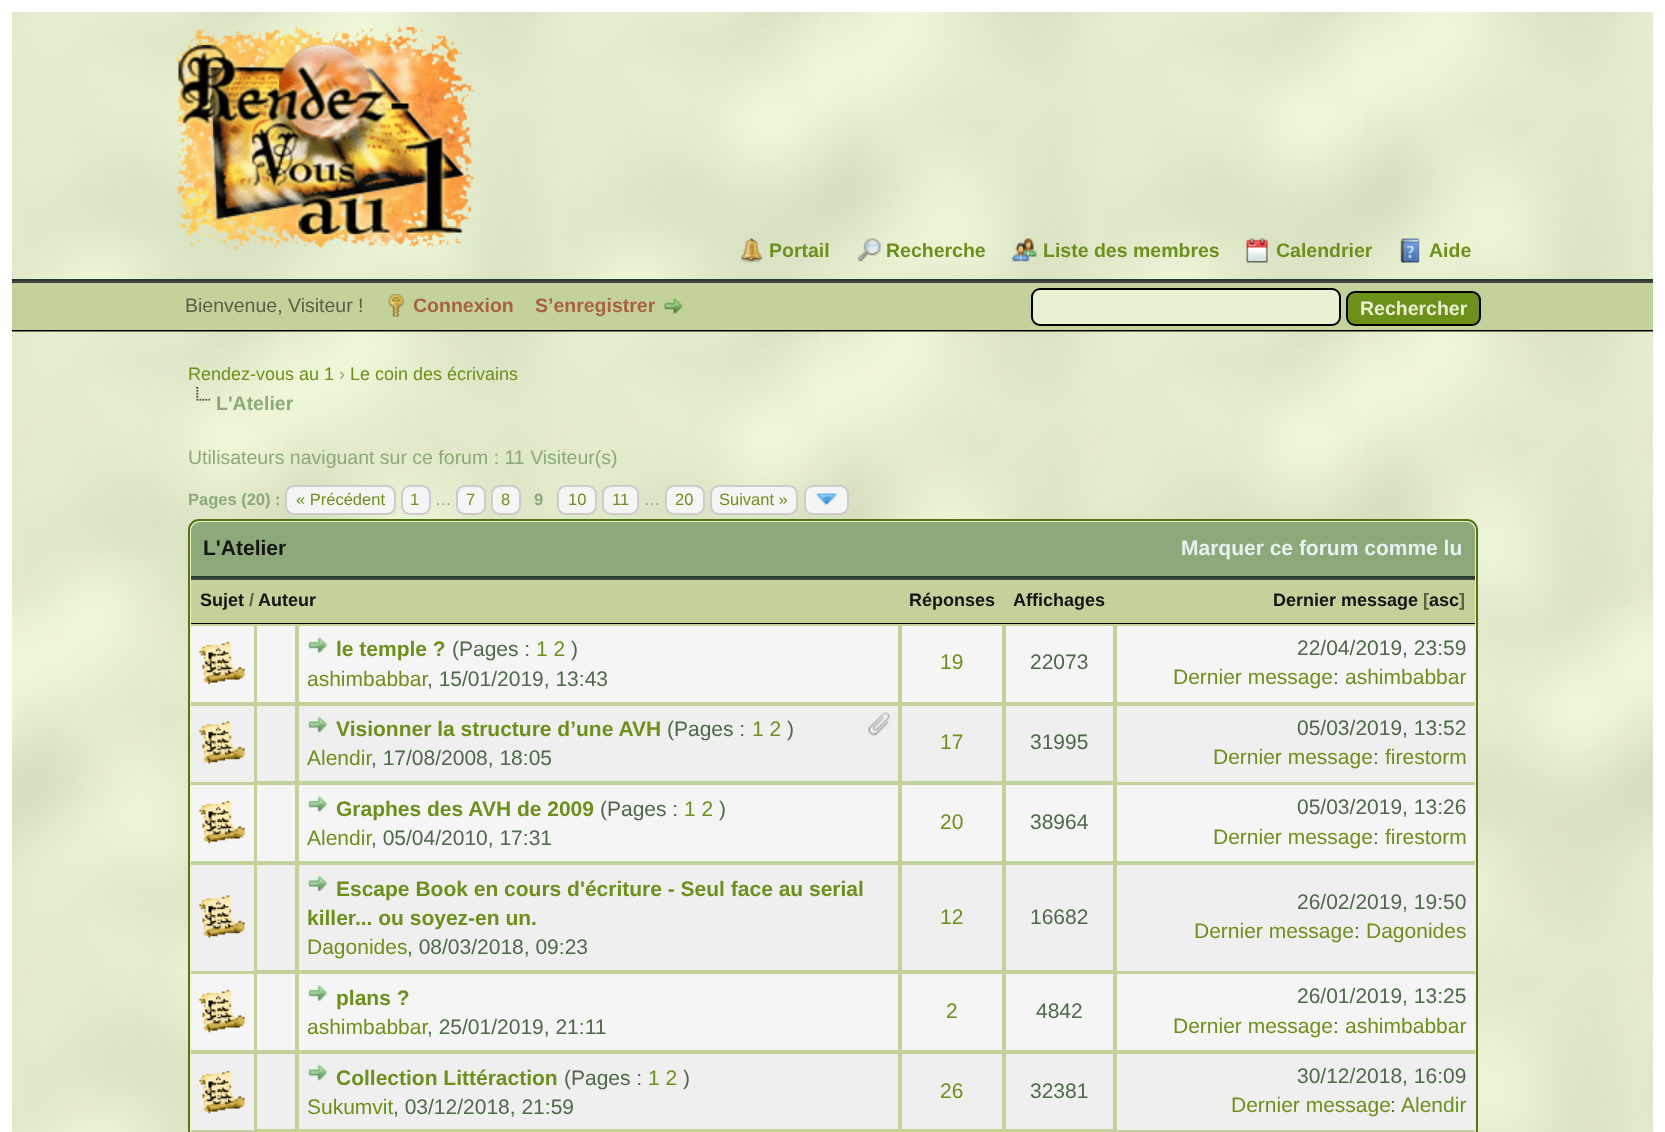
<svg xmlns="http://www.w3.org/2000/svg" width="1665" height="1132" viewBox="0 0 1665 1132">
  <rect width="100%" height="100%" fill="#ffffff"/>
  <image x="12" y="12" width="1641" height="267" href="img1.png"/>
  <rect x="12" y="279" width="1641" height="2" fill="#263c30"/>
  <image x="175" y="27" width="300" height="223" href="img2.png"/>
  <image x="740" y="238" width="23" height="25" href="img3.png"/>
  <text x="769" y="257" font-family="Liberation Sans" font-size="19.5" font-weight="bold" fill="#6c9019">Portail</text>
  <image x="857" y="238" width="24" height="24" href="img4.png"/>
  <text x="886" y="257" font-family="Liberation Sans" font-size="19.5" font-weight="bold" fill="#6c9019">Recherche</text>
  <image x="1012" y="238" width="25" height="24" href="img5.png"/>
  <text x="1043" y="257" font-family="Liberation Sans" font-size="19.5" font-weight="bold" fill="#6c9019">Liste des membres</text>
  <image x="1246" y="238" width="22" height="25" href="img6.png"/>
  <text x="1276" y="257" font-family="Liberation Sans" font-size="19.5" font-weight="bold" fill="#6c9019">Calendrier</text>
  <image x="1400" y="238" width="20" height="25" href="img7.png"/>
  <text x="1429" y="257" font-family="Liberation Sans" font-size="19.5" font-weight="bold" fill="#6c9019">Aide</text>
  <rect x="12" y="283" width="1641" height="47" fill="#c2d29a"/>
  <rect x="12" y="281" width="1641" height="2" fill="#444444"/>
  <rect x="12" y="330" width="1641" height="2" fill="#000000"/>
  <text x="185" y="312" font-family="Liberation Sans" font-size="19.5" fill="#586141">Bienvenue, Visiteur !</text>
  <image x="388" y="294" width="16" height="23" href="img8.png"/>
  <text x="413" y="312" font-family="Liberation Sans" font-size="19.5" font-weight="bold" fill="#a86141">Connexion</text>
  <text x="535" y="312" font-family="Liberation Sans" font-size="19.5" font-weight="bold" fill="#a86141">S’enregistrer</text>
  <image x="664" y="298" width="19" height="16" href="img9.png"/>
  <rect x="1032" y="289" width="308" height="36" rx="8" fill="#e8f1d1" stroke="#000000" stroke-width="2"/>
  <rect x="1347" y="292" width="133" height="33" rx="8" fill="#6c9019" stroke="#000000" stroke-width="2"/>
  <text x="1360" y="315" font-family="Liberation Sans" font-size="19.5" font-weight="bold" fill="#e8f1d1">Rechercher</text>
  <image x="12" y="331" width="1641" height="801" href="img10.png"/>
  <text x="188" y="380" font-family="Liberation Sans" font-size="18" fill="#6c9019">Rendez-vous au 1</text>
  <text x="339" y="380" font-family="Liberation Sans" font-size="18" fill="#8ea979">›</text>
  <text x="350" y="380" font-family="Liberation Sans" font-size="18" fill="#6c9019">Le coin des écrivains</text>
  <image x="196" y="387" width="14" height="14" href="img11.png"/>
  <text x="216" y="410" font-family="Liberation Sans" font-size="19.5" font-weight="bold" fill="#8ea979">L'Atelier</text>
  <text x="188" y="464" font-family="Liberation Sans" font-size="19.5" fill="#8ea979">Utilisateurs naviguant sur ce forum : 11 Visiteur(s)</text>
  <text x="188" y="505" font-family="Liberation Sans" font-size="16.5" font-weight="bold" fill="#8ea979">Pages (20) :</text>
  <rect x="286" y="486" width="109" height="28" rx="8" fill="#f5f5f5" stroke="#cccccc" stroke-width="2"/>
  <text x="296" y="505" font-family="Liberation Sans" font-size="16.5" fill="#6c9019">« Précédent</text>
  <rect x="402" y="486" width="28" height="28" rx="8" fill="#f5f5f5" stroke="#cccccc" stroke-width="2"/>
  <text x="410" y="505" font-family="Liberation Sans" font-size="16.5" fill="#6c9019">1</text>
  <rect x="457" y="486" width="28" height="28" rx="8" fill="#f5f5f5" stroke="#cccccc" stroke-width="2"/>
  <text x="466" y="505" font-family="Liberation Sans" font-size="16.5" fill="#6c9019">7</text>
  <rect x="492" y="486" width="28" height="28" rx="8" fill="#f5f5f5" stroke="#cccccc" stroke-width="2"/>
  <text x="501" y="505" font-family="Liberation Sans" font-size="16.5" fill="#6c9019">8</text>
  <text x="534" y="505" font-family="Liberation Sans" font-size="16.5" font-weight="bold" fill="#8ea979">9</text>
  <rect x="558" y="486" width="38" height="28" rx="8" fill="#f5f5f5" stroke="#cccccc" stroke-width="2"/>
  <text x="568" y="505" font-family="Liberation Sans" font-size="16.5" fill="#6c9019">10</text>
  <rect x="603" y="486" width="35" height="28" rx="8" fill="#f5f5f5" stroke="#cccccc" stroke-width="2"/>
  <text x="612" y="505" font-family="Liberation Sans" font-size="16.5" fill="#6c9019">11</text>
  <rect x="666" y="486" width="38" height="28" rx="8" fill="#f5f5f5" stroke="#cccccc" stroke-width="2"/>
  <text x="675" y="505" font-family="Liberation Sans" font-size="16.5" fill="#6c9019">20</text>
  <rect x="711" y="486" width="86" height="28" rx="8" fill="#f5f5f5" stroke="#cccccc" stroke-width="2"/>
  <text x="719" y="505" font-family="Liberation Sans" font-size="16.5" fill="#6c9019">Suivant »</text>
  <rect x="805" y="486" width="43" height="28" rx="8" fill="#f5f5f5" stroke="#cccccc" stroke-width="2"/>
  <text x="435" y="505" font-family="Liberation Sans" font-size="16.5" fill="#8ea979">…</text>
  <text x="644" y="505" font-family="Liberation Sans" font-size="16.5" fill="#8ea979">…</text>
  <image x="816" y="493" width="22" height="12" href="img12.png"/>
  <rect x="189" y="520" width="1288" height="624" rx="10" fill="#e8f1d1" stroke="#577314" stroke-width="2"/>
  <path d="M200 522H1466C1471 522 1475 526 1475 531V578H191V531C191 526 195 522 200 522Z" fill="#8ea979"/>
  <rect x="191" y="576" width="1284" height="2" fill="#263c30"/>
  <text x="203" y="555" font-family="Liberation Sans" font-size="21" font-weight="bold" fill="#141414">L'Atelier</text>
  <text x="1181" y="555" font-family="Liberation Sans" font-size="21" font-weight="bold" fill="#e8f1f1">Marquer ce forum comme lu</text>
  <rect x="191" y="580" width="1284" height="43" fill="#c2d29a"/>
  <rect x="191" y="578" width="1284" height="2" fill="#444444"/>
  <rect x="191" y="623" width="1284" height="1" fill="#000000"/>
  <text x="200" y="606" font-family="Liberation Sans" font-size="18" font-weight="bold" fill="#141414">Sujet</text>
  <text x="249" y="606" font-family="Liberation Sans" font-size="18" font-weight="bold" fill="#586141">/</text>
  <text x="258" y="606" font-family="Liberation Sans" font-size="18" font-weight="bold" fill="#141414">Auteur</text>
  <text x="909" y="606" font-family="Liberation Sans" font-size="18" font-weight="bold" fill="#141414">Réponses</text>
  <text x="1013" y="606" font-family="Liberation Sans" font-size="18" font-weight="bold" fill="#141414">Affichages</text>
  <text x="1273" y="606" font-family="Liberation Sans" font-size="18" font-weight="bold" fill="#141414">Dernier message</text>
  <text x="1423" y="606" font-family="Liberation Sans" font-size="18" font-weight="bold" fill="#586141">[</text>
  <text x="1429" y="606" font-family="Liberation Sans" font-size="18" font-weight="bold" fill="#141414">asc</text>
  <text x="1459" y="606" font-family="Liberation Sans" font-size="18" font-weight="bold" fill="#586141">]</text>
  <rect x="191" y="626" width="63" height="76" fill="#f5f5f5"/>
  <rect x="191" y="624" width="64" height="2" fill="#c2d29a"/>
  <rect x="254" y="624" width="1" height="80" fill="#c2d29a"/>
  <rect x="191" y="702" width="64" height="4" fill="#c2d29a"/>
  <image x="199" y="641" width="46" height="44" href="img13.png"/>
  <rect x="256" y="625" width="40" height="78" fill="#f5f5f5" stroke="#c2d29a" stroke-width="2"/>
  <rect x="298" y="625" width="601" height="78" fill="#f5f5f5" stroke="#c2d29a" stroke-width="2"/>
  <image x="308" y="637" width="20" height="16" href="img14.png"/>
  <text x="336" y="656" font-family="Liberation Sans" font-size="21" font-weight="bold" fill="#6c9019">le temple ?</text>
  <text x="452" y="656" font-family="Liberation Sans" font-size="21" fill="#4e6949">(Pages :</text>
  <text x="536" y="656" font-family="Liberation Sans" font-size="21" fill="#6c9019">1 2</text>
  <text x="571" y="656" font-family="Liberation Sans" font-size="21" fill="#4e6949">)</text>
  <text x="307" y="686" font-family="Liberation Sans" font-size="21" fill="#6c9019">ashimbabbar</text>
  <text x="427" y="686" font-family="Liberation Sans" font-size="21" fill="#4e6949">, 15/01/2019, 13:43</text>
  <rect x="901" y="625" width="102" height="78" fill="#f5f5f5" stroke="#c2d29a" stroke-width="2"/>
  <text x="940" y="669" font-family="Liberation Sans" font-size="21" fill="#6c9019">19</text>
  <rect x="1005" y="625" width="109" height="78" fill="#f5f5f5" stroke="#c2d29a" stroke-width="2"/>
  <text x="1030" y="669" font-family="Liberation Sans" font-size="21" fill="#4e6949">22073</text>
  <rect x="1117" y="626" width="358" height="76" fill="#f5f5f5"/>
  <rect x="1115" y="624" width="360" height="2" fill="#c2d29a"/>
  <rect x="1115" y="702" width="360" height="4" fill="#c2d29a"/>
  <rect x="1115" y="624" width="2" height="80" fill="#c2d29a"/>
  <text x="1297" y="655" font-family="Liberation Sans" font-size="21" fill="#4e6949">22/04/2019, 23:59</text>
  <text x="1173" y="684" font-family="Liberation Sans" font-size="21" fill="#6c9019">Dernier message</text>
  <text x="1333" y="684" font-family="Liberation Sans" font-size="21" fill="#4e6949">:</text>
  <text x="1345" y="684" font-family="Liberation Sans" font-size="21" fill="#6c9019">ashimbabbar</text>
  <rect x="191" y="706" width="63" height="76" fill="#efefef"/>
  <rect x="254" y="704" width="1" height="79" fill="#c2d29a"/>
  <rect x="191" y="782" width="64" height="3" fill="#c2d29a"/>
  <image x="199" y="721" width="46" height="43" href="img15.png"/>
  <rect x="256" y="705" width="40" height="77" fill="#efefef" stroke="#c2d29a" stroke-width="2"/>
  <rect x="298" y="705" width="601" height="77" fill="#efefef" stroke="#c2d29a" stroke-width="2"/>
  <image x="308" y="716" width="20" height="17" href="img16.png"/>
  <text x="336" y="736" font-family="Liberation Sans" font-size="21" font-weight="bold" fill="#6c9019">Visionner la structure d’une AVH</text>
  <text x="667" y="736" font-family="Liberation Sans" font-size="21" fill="#4e6949">(Pages :</text>
  <text x="752" y="736" font-family="Liberation Sans" font-size="21" fill="#6c9019">1 2</text>
  <text x="787" y="736" font-family="Liberation Sans" font-size="21" fill="#4e6949">)</text>
  <text x="307" y="765" font-family="Liberation Sans" font-size="21" fill="#6c9019">Alendir</text>
  <text x="371" y="765" font-family="Liberation Sans" font-size="21" fill="#4e6949">, 17/08/2008, 18:05</text>
  <image x="868" y="712" width="22" height="24" href="img17.png"/>
  <rect x="901" y="705" width="102" height="77" fill="#efefef" stroke="#c2d29a" stroke-width="2"/>
  <text x="940" y="749" font-family="Liberation Sans" font-size="21" fill="#6c9019">17</text>
  <rect x="1005" y="705" width="109" height="77" fill="#efefef" stroke="#c2d29a" stroke-width="2"/>
  <text x="1030" y="749" font-family="Liberation Sans" font-size="21" fill="#4e6949">31995</text>
  <rect x="1117" y="706" width="358" height="76" fill="#efefef"/>
  <rect x="1115" y="782" width="360" height="3" fill="#c2d29a"/>
  <rect x="1115" y="704" width="2" height="79" fill="#c2d29a"/>
  <text x="1297" y="735" font-family="Liberation Sans" font-size="21" fill="#4e6949">05/03/2019, 13:52</text>
  <text x="1213" y="764" font-family="Liberation Sans" font-size="21" fill="#6c9019">Dernier message</text>
  <text x="1373" y="764" font-family="Liberation Sans" font-size="21" fill="#4e6949">:</text>
  <text x="1385" y="764" font-family="Liberation Sans" font-size="21" fill="#6c9019">firestorm</text>
  <rect x="191" y="785" width="63" height="76" fill="#f5f5f5"/>
  <rect x="254" y="783" width="1" height="80" fill="#c2d29a"/>
  <rect x="191" y="861" width="64" height="4" fill="#c2d29a"/>
  <image x="199" y="800" width="46" height="44" href="img13.png"/>
  <rect x="256" y="784" width="40" height="78" fill="#f5f5f5" stroke="#c2d29a" stroke-width="2"/>
  <rect x="298" y="784" width="601" height="78" fill="#f5f5f5" stroke="#c2d29a" stroke-width="2"/>
  <image x="308" y="796" width="20" height="16" href="img14.png"/>
  <text x="336" y="816" font-family="Liberation Sans" font-size="21" font-weight="bold" fill="#6c9019">Graphes des AVH de 2009</text>
  <text x="600" y="816" font-family="Liberation Sans" font-size="21" fill="#4e6949">(Pages :</text>
  <text x="684" y="816" font-family="Liberation Sans" font-size="21" fill="#6c9019">1 2</text>
  <text x="719" y="816" font-family="Liberation Sans" font-size="21" fill="#4e6949">)</text>
  <text x="307" y="845" font-family="Liberation Sans" font-size="21" fill="#6c9019">Alendir</text>
  <text x="371" y="845" font-family="Liberation Sans" font-size="21" fill="#4e6949">, 05/04/2010, 17:31</text>
  <rect x="901" y="784" width="102" height="78" fill="#f5f5f5" stroke="#c2d29a" stroke-width="2"/>
  <text x="940" y="829" font-family="Liberation Sans" font-size="21" fill="#6c9019">20</text>
  <rect x="1005" y="784" width="109" height="78" fill="#f5f5f5" stroke="#c2d29a" stroke-width="2"/>
  <text x="1030" y="829" font-family="Liberation Sans" font-size="21" fill="#4e6949">38964</text>
  <rect x="1117" y="785" width="358" height="76" fill="#f5f5f5"/>
  <rect x="1115" y="861" width="360" height="4" fill="#c2d29a"/>
  <rect x="1115" y="783" width="2" height="80" fill="#c2d29a"/>
  <text x="1297" y="814" font-family="Liberation Sans" font-size="21" fill="#4e6949">05/03/2019, 13:26</text>
  <text x="1213" y="844" font-family="Liberation Sans" font-size="21" fill="#6c9019">Dernier message</text>
  <text x="1373" y="844" font-family="Liberation Sans" font-size="21" fill="#4e6949">:</text>
  <text x="1385" y="844" font-family="Liberation Sans" font-size="21" fill="#6c9019">firestorm</text>
  <rect x="191" y="865" width="63" height="106" fill="#efefef"/>
  <rect x="254" y="863" width="1" height="109" fill="#c2d29a"/>
  <rect x="191" y="971" width="64" height="3" fill="#c2d29a"/>
  <image x="199" y="895" width="46" height="43" href="img15.png"/>
  <rect x="256" y="864" width="40" height="107" fill="#efefef" stroke="#c2d29a" stroke-width="2"/>
  <rect x="298" y="864" width="601" height="107" fill="#efefef" stroke="#c2d29a" stroke-width="2"/>
  <image x="308" y="875" width="20" height="17" href="img16.png"/>
  <text x="336" y="896" font-family="Liberation Sans" font-size="21" font-weight="bold" fill="#6c9019">Escape Book en cours d'écriture - Seul face au serial</text>
  <text x="307" y="925" font-family="Liberation Sans" font-size="21" font-weight="bold" fill="#6c9019">killer... ou soyez-en un.</text>
  <text x="307" y="954" font-family="Liberation Sans" font-size="21" fill="#6c9019">Dagonides</text>
  <text x="407" y="954" font-family="Liberation Sans" font-size="21" fill="#4e6949">, 08/03/2018, 09:23</text>
  <rect x="901" y="864" width="102" height="107" fill="#efefef" stroke="#c2d29a" stroke-width="2"/>
  <text x="940" y="924" font-family="Liberation Sans" font-size="21" fill="#6c9019">12</text>
  <rect x="1005" y="864" width="109" height="107" fill="#efefef" stroke="#c2d29a" stroke-width="2"/>
  <text x="1030" y="924" font-family="Liberation Sans" font-size="21" fill="#4e6949">16682</text>
  <rect x="1117" y="865" width="358" height="106" fill="#efefef"/>
  <rect x="1115" y="971" width="360" height="3" fill="#c2d29a"/>
  <rect x="1115" y="863" width="2" height="109" fill="#c2d29a"/>
  <text x="1297" y="909" font-family="Liberation Sans" font-size="21" fill="#4e6949">26/02/2019, 19:50</text>
  <text x="1194" y="938" font-family="Liberation Sans" font-size="21" fill="#6c9019">Dernier message</text>
  <text x="1354" y="938" font-family="Liberation Sans" font-size="21" fill="#4e6949">:</text>
  <text x="1366" y="938" font-family="Liberation Sans" font-size="21" fill="#6c9019">Dagonides</text>
  <rect x="191" y="974" width="63" height="76" fill="#f5f5f5"/>
  <rect x="254" y="972" width="1" height="80" fill="#c2d29a"/>
  <rect x="191" y="1050" width="64" height="4" fill="#c2d29a"/>
  <image x="199" y="989" width="46" height="44" href="img13.png"/>
  <rect x="256" y="973" width="40" height="78" fill="#f5f5f5" stroke="#c2d29a" stroke-width="2"/>
  <rect x="298" y="973" width="601" height="78" fill="#f5f5f5" stroke="#c2d29a" stroke-width="2"/>
  <image x="308" y="985" width="20" height="16" href="img14.png"/>
  <text x="336" y="1005" font-family="Liberation Sans" font-size="21" font-weight="bold" fill="#6c9019">plans ?</text>
  <text x="307" y="1034" font-family="Liberation Sans" font-size="21" fill="#6c9019">ashimbabbar</text>
  <text x="427" y="1034" font-family="Liberation Sans" font-size="21" fill="#4e6949">, 25/01/2019, 21:11</text>
  <rect x="901" y="973" width="102" height="78" fill="#f5f5f5" stroke="#c2d29a" stroke-width="2"/>
  <text x="946" y="1018" font-family="Liberation Sans" font-size="21" fill="#6c9019">2</text>
  <rect x="1005" y="973" width="109" height="78" fill="#f5f5f5" stroke="#c2d29a" stroke-width="2"/>
  <text x="1036" y="1018" font-family="Liberation Sans" font-size="21" fill="#4e6949">4842</text>
  <rect x="1117" y="974" width="358" height="76" fill="#f5f5f5"/>
  <rect x="1115" y="1050" width="360" height="4" fill="#c2d29a"/>
  <rect x="1115" y="972" width="2" height="80" fill="#c2d29a"/>
  <text x="1297" y="1003" font-family="Liberation Sans" font-size="21" fill="#4e6949">26/01/2019, 13:25</text>
  <text x="1173" y="1033" font-family="Liberation Sans" font-size="21" fill="#6c9019">Dernier message</text>
  <text x="1333" y="1033" font-family="Liberation Sans" font-size="21" fill="#4e6949">:</text>
  <text x="1345" y="1033" font-family="Liberation Sans" font-size="21" fill="#6c9019">ashimbabbar</text>
  <rect x="191" y="1054" width="63" height="76" fill="#efefef"/>
  <rect x="254" y="1052" width="1" height="79" fill="#c2d29a"/>
  <rect x="191" y="1130" width="64" height="2" fill="#c2d29a"/>
  <image x="199" y="1070" width="46" height="44" href="img18.png"/>
  <rect x="256" y="1053" width="40" height="77" fill="#efefef" stroke="#c2d29a" stroke-width="2"/>
  <rect x="298" y="1053" width="601" height="77" fill="#efefef" stroke="#c2d29a" stroke-width="2"/>
  <image x="308" y="1064" width="20" height="17" href="img16.png"/>
  <text x="336" y="1085" font-family="Liberation Sans" font-size="21" font-weight="bold" fill="#6c9019">Collection Littéraction</text>
  <text x="564" y="1085" font-family="Liberation Sans" font-size="21" fill="#4e6949">(Pages :</text>
  <text x="648" y="1085" font-family="Liberation Sans" font-size="21" fill="#6c9019">1 2</text>
  <text x="683" y="1085" font-family="Liberation Sans" font-size="21" fill="#4e6949">)</text>
  <text x="307" y="1114" font-family="Liberation Sans" font-size="21" fill="#6c9019">Sukumvit</text>
  <text x="393" y="1114" font-family="Liberation Sans" font-size="21" fill="#4e6949">, 03/12/2018, 21:59</text>
  <rect x="901" y="1053" width="102" height="77" fill="#efefef" stroke="#c2d29a" stroke-width="2"/>
  <text x="940" y="1098" font-family="Liberation Sans" font-size="21" fill="#6c9019">26</text>
  <rect x="1005" y="1053" width="109" height="77" fill="#efefef" stroke="#c2d29a" stroke-width="2"/>
  <text x="1030" y="1098" font-family="Liberation Sans" font-size="21" fill="#4e6949">32381</text>
  <rect x="1117" y="1054" width="358" height="76" fill="#efefef"/>
  <rect x="1115" y="1130" width="360" height="2" fill="#c2d29a"/>
  <rect x="1115" y="1052" width="2" height="79" fill="#c2d29a"/>
  <text x="1297" y="1083" font-family="Liberation Sans" font-size="21" fill="#4e6949">30/12/2018, 16:09</text>
  <text x="1231" y="1112" font-family="Liberation Sans" font-size="21" fill="#6c9019">Dernier message</text>
  <text x="1390" y="1112" font-family="Liberation Sans" font-size="21" fill="#4e6949">:</text>
  <text x="1401" y="1112" font-family="Liberation Sans" font-size="21" fill="#6c9019">Alendir</text>
  <rect x="254" y="1131" width="2" height="1" fill="#c2d29a"/>
  <rect x="256" y="1132" width="40" height="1" fill="none" stroke="#c2d29a" stroke-width="2"/>
  <rect x="298" y="1132" width="601" height="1" fill="none" stroke="#c2d29a" stroke-width="2"/>
  <rect x="901" y="1132" width="102" height="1" fill="none" stroke="#c2d29a" stroke-width="2"/>
  <rect x="1005" y="1132" width="109" height="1" fill="none" stroke="#c2d29a" stroke-width="2"/>
</svg>
